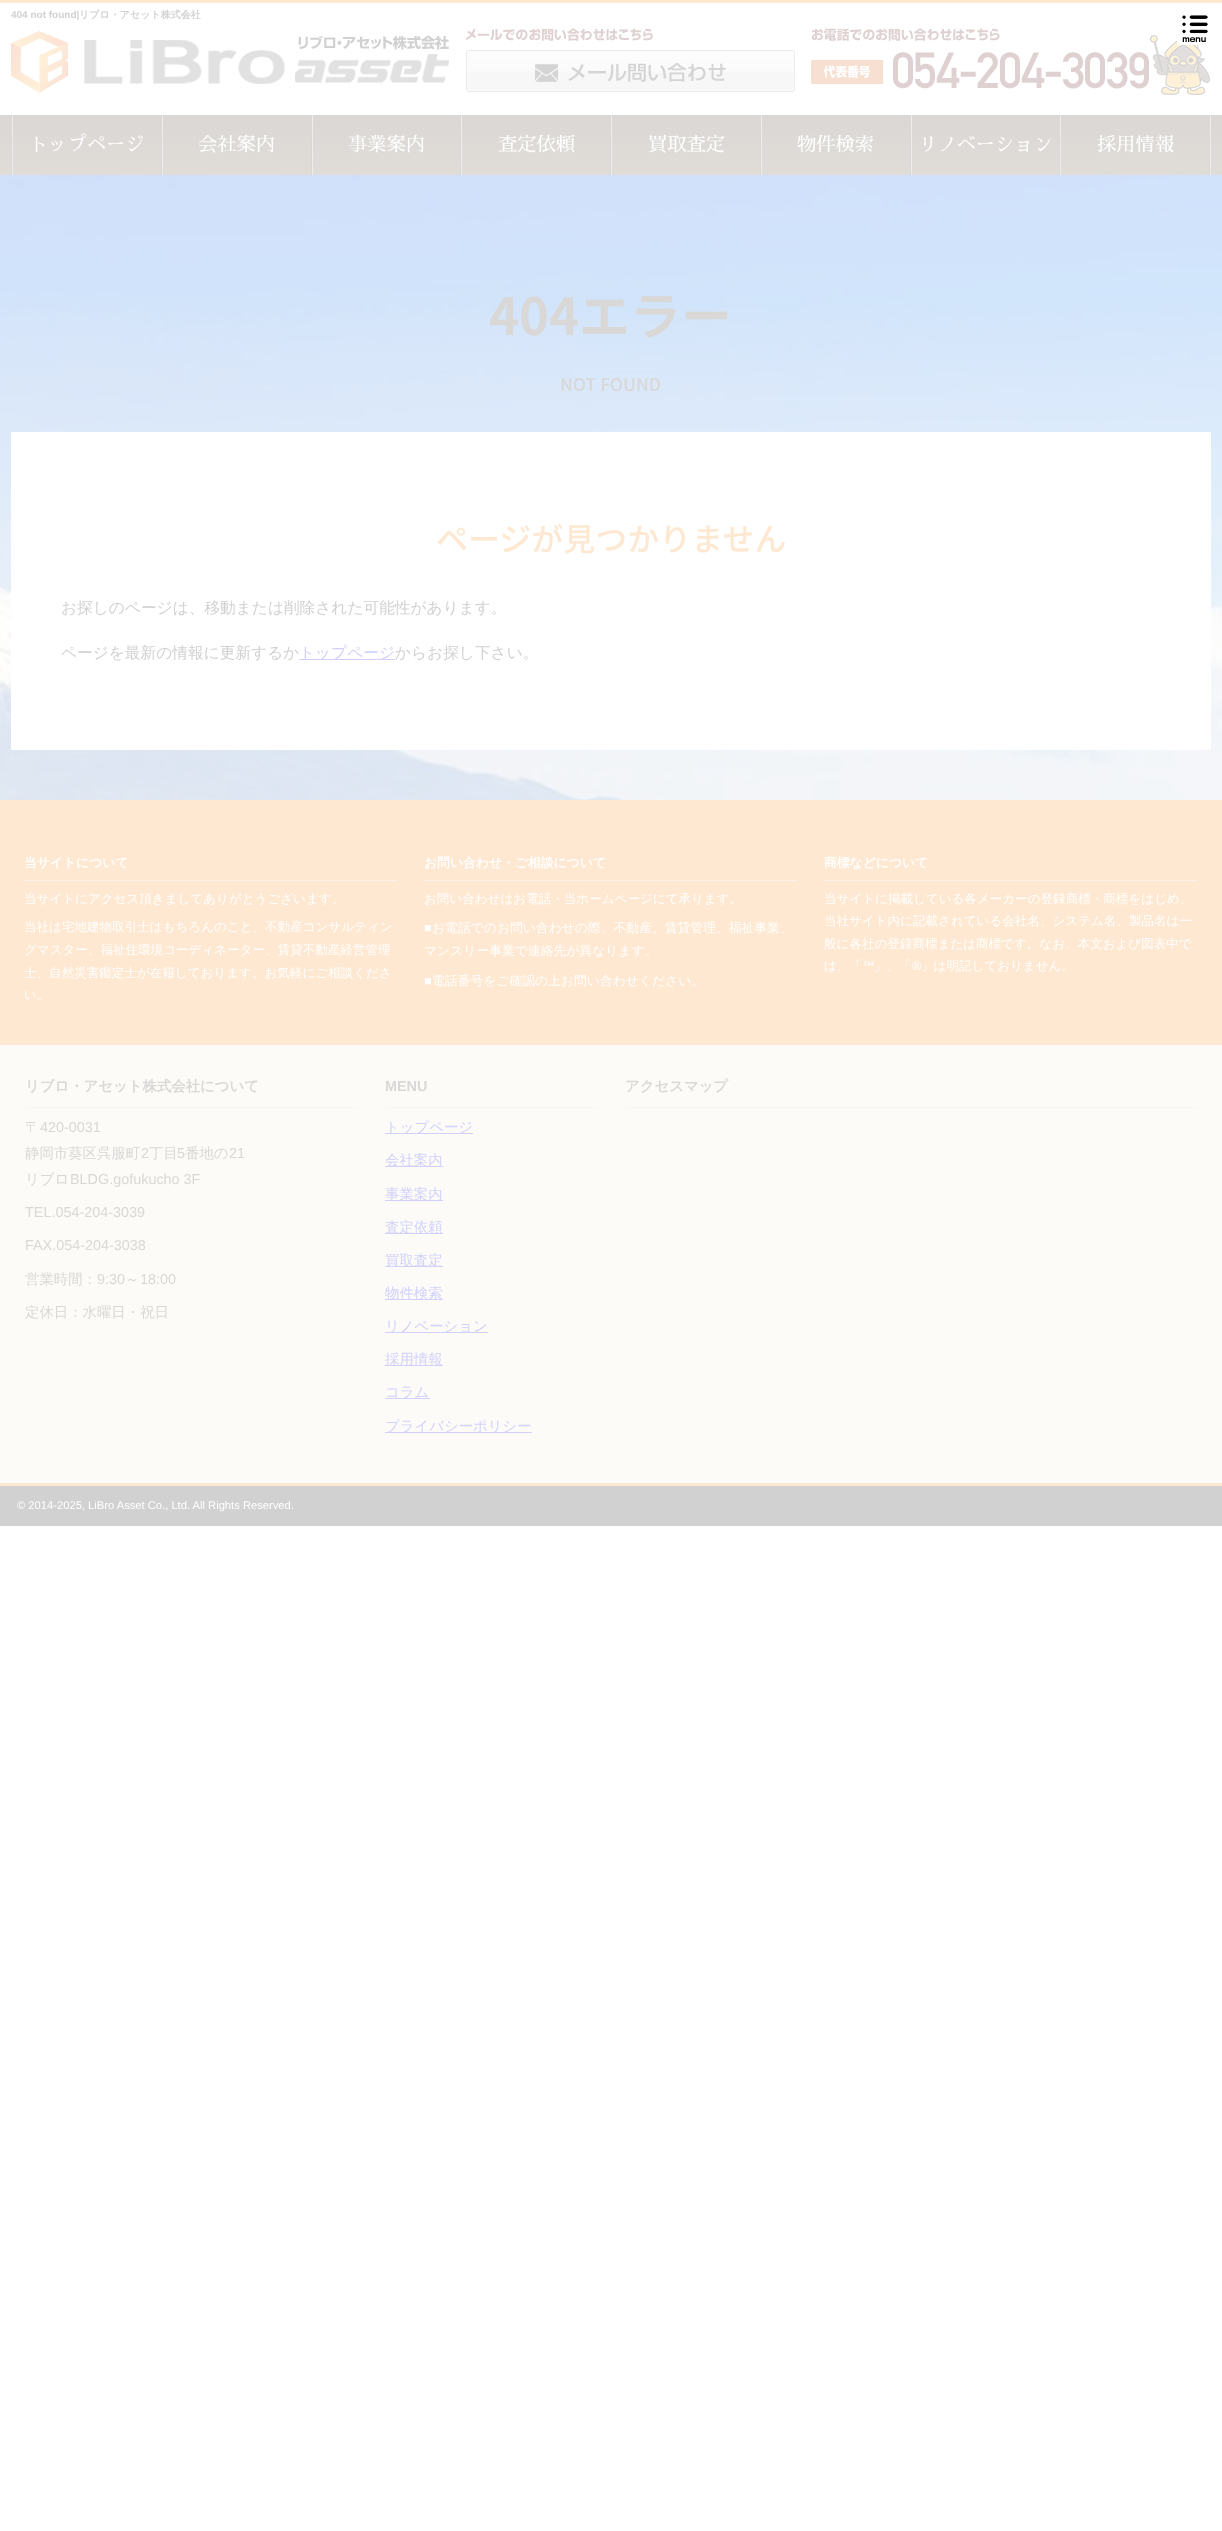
<svg xmlns="http://www.w3.org/2000/svg" width="1222" height="2531" viewBox="0 0 1222 2531">
  <defs>
    <linearGradient id="g1" gradientUnits="userSpaceOnUse" x1="611" y1="115" x2="611" y2="175"><stop offset="0" stop-color="#dbd7d4"/><stop offset="1" stop-color="#e0ddd9"/></linearGradient>
  </defs>
  <rect width="100%" height="100%" fill="#ffffff"/>
  <rect x="0" y="0" width="1222" height="3" fill="#ffe8d1"/>
  <text x="11" y="18" font-family="Liberation Sans" font-size="10" font-weight="bold" fill="#d1d1d1">404 not found|</text>
  <text x="79" y="18" font-family="WenQuanYi Zen Hei" font-size="10" font-weight="bold" fill="#d1d1d1">リブロ・アセット株式会社</text>
  <image x="11" y="31" width="438" height="62" href="img1.png"/>
  <image x="466" y="28" width="329" height="64" href="img2.png"/>
  <image x="811" y="28" width="399" height="67" href="img3.png"/>
  <image x="1177" y="15" width="31" height="30" href="img4.png"/>
  <rect x="0" y="115" width="1222" height="60" fill="url(#g1)"/>
  <rect x="1210" y="115" width="1" height="60" fill="#ededed"/>
  <rect x="11" y="133" width="1" height="42" fill="#dad7d3"/>
  <rect x="161" y="133" width="1" height="42" fill="#dad7d3"/>
  <rect x="12" y="115" width="1" height="60" fill="#ededed"/>
  <text x="29" y="151" font-family="Sawarabi Mincho" font-size="19.25" fill="#ffffff">トップページ</text>
  <rect x="311" y="133" width="1" height="42" fill="#dad7d3"/>
  <rect x="162" y="115" width="1" height="60" fill="#ededed"/>
  <text x="198" y="151" font-family="Sawarabi Mincho" font-size="19.25" fill="#ffffff">会社案内</text>
  <rect x="460" y="133" width="1" height="42" fill="#dad7d3"/>
  <rect x="312" y="115" width="1" height="60" fill="#ededed"/>
  <text x="348" y="151" font-family="Sawarabi Mincho" font-size="19.25" fill="#ffffff">事業案内</text>
  <rect x="610" y="133" width="1" height="42" fill="#dad7d3"/>
  <rect x="461" y="115" width="1" height="60" fill="#ededed"/>
  <text x="498" y="151" font-family="Sawarabi Mincho" font-size="19.25" fill="#ffffff">査定依頼</text>
  <rect x="760" y="133" width="1" height="42" fill="#dad7d3"/>
  <rect x="611" y="115" width="1" height="60" fill="#ededed"/>
  <text x="648" y="151" font-family="Sawarabi Mincho" font-size="19.25" fill="#ffffff">買取査定</text>
  <rect x="910" y="133" width="1" height="42" fill="#dad7d3"/>
  <rect x="761" y="115" width="1" height="60" fill="#ededed"/>
  <text x="797" y="151" font-family="Sawarabi Mincho" font-size="19.25" fill="#ffffff">物件検索</text>
  <rect x="1059" y="133" width="1" height="42" fill="#dad7d3"/>
  <rect x="911" y="115" width="1" height="60" fill="#ededed"/>
  <text x="918" y="151" font-family="Sawarabi Mincho" font-size="19.25" fill="#ffffff">リノベーション</text>
  <rect x="1209" y="133" width="1" height="42" fill="#dad7d3"/>
  <rect x="1060" y="115" width="1" height="60" fill="#ededed"/>
  <text x="1097" y="151" font-family="Sawarabi Mincho" font-size="19.25" fill="#ffffff">採用情報</text>
  <image x="0" y="175" width="1222" height="625" href="img5.png"/>
  <text x="489" y="335" font-family="Noto Sans JP" font-size="51" font-weight="bold" fill="#d9d8d7">404エラー</text>
  <text x="560" y="391" font-family="Noto Sans JP" font-size="17.5" font-weight="500" fill="#d9d8d7">NOT FOUND</text>
  <rect x="11" y="432" width="1200" height="318" fill="#ffffff"/>
  <text x="436" y="551" font-family="Noto Sans JP" font-size="32" font-weight="500" fill="#ffe8d1">ページが見つかりません</text>
  <text x="61" y="613" font-family="WenQuanYi Zen Hei" font-size="15.7" font-weight="500" fill="#d1d1d1">お探しのページは、移動または削除された可能性があります。</text>
  <text x="61" y="658" font-family="WenQuanYi Zen Hei" font-size="15.7" font-weight="500" fill="#d1d1d1">ページを最新の情報に更新するか</text>
  <rect x="299" y="659" width="96" height="1" fill="#d1d1fc"/>
  <text x="299" y="658" font-family="WenQuanYi Zen Hei" font-size="15.7" font-weight="500" fill="#d1d1fc">トップページ</text>
  <text x="395" y="658" font-family="WenQuanYi Zen Hei" font-size="15.7" font-weight="500" fill="#d1d1d1">からお探し下さい。</text>
  <rect x="0" y="800" width="1222" height="245" fill="#ffe8d1"/>
  <path d="M24 880.5H398" fill="none" stroke="#f9f9f9" stroke-dasharray="1 1"/>
  <text x="24" y="867" font-family="WenQuanYi Zen Hei" font-size="12.8" font-weight="bold" fill="#ffffff">当サイトについて</text>
  <text x="24" y="903" font-family="WenQuanYi Zen Hei" font-size="12.55" font-weight="500" fill="#ffffff">当サイトにアクセス頂きましてありがとうございます。</text>
  <text x="24" y="931" font-family="WenQuanYi Zen Hei" font-size="12.55" font-weight="500" fill="#ffffff">当社は宅地建物取引士はもちろんのこと、不動産コンサルティン</text>
  <text x="24" y="954" font-family="WenQuanYi Zen Hei" font-size="12.55" font-weight="500" fill="#ffffff">グマスター、福祉住環境コーディネーター、賃貸不動産経営管理</text>
  <text x="24" y="977" font-family="WenQuanYi Zen Hei" font-size="12.55" font-weight="500" fill="#ffffff">士、自然災害鑑定士が在籍しております。お気軽にご相談くださ</text>
  <text x="24" y="999" font-family="WenQuanYi Zen Hei" font-size="12.55" font-weight="500" fill="#ffffff">い。</text>
  <path d="M424 880.5H798" fill="none" stroke="#f9f9f9" stroke-dasharray="1 1"/>
  <text x="424" y="867" font-family="WenQuanYi Zen Hei" font-size="12.8" font-weight="bold" fill="#ffffff">お問い合わせ・ご相談について</text>
  <text x="424" y="903" font-family="WenQuanYi Zen Hei" font-size="12.55" font-weight="500" fill="#ffffff">お問い合わせはお電話・当ホームページにて承ります。</text>
  <text x="424" y="932" font-family="Liberation Sans" font-size="12.8" fill="#ffffff">■</text>
  <text x="432" y="932" font-family="WenQuanYi Zen Hei" font-size="12.8" font-weight="500" fill="#ffffff">お電話でのお問い合わせの際、不動産、賃貸管理、福祉事業、</text>
  <text x="424" y="955" font-family="WenQuanYi Zen Hei" font-size="12.8" font-weight="500" fill="#ffffff">マンスリー事業で連絡先が異なります。</text>
  <text x="424" y="985" font-family="Liberation Sans" font-size="12.8" fill="#ffffff">■</text>
  <text x="432" y="985" font-family="WenQuanYi Zen Hei" font-size="12.8" font-weight="500" fill="#ffffff">電話番号をご確認の上お問い合わせください。</text>
  <path d="M824 880.5H1198" fill="none" stroke="#f9f9f9" stroke-dasharray="1 1"/>
  <text x="824" y="867" font-family="WenQuanYi Zen Hei" font-size="12.8" font-weight="bold" fill="#ffffff">商標などについて</text>
  <text x="824" y="903" font-family="WenQuanYi Zen Hei" font-size="12.55" font-weight="500" fill="#ffffff">当サイトに掲載している各メーカーの登録商標・商標をはじめ、</text>
  <text x="824" y="925" font-family="WenQuanYi Zen Hei" font-size="12.55" font-weight="500" fill="#ffffff">当社サイト内に記載されている会社名、システム名、製品名は一</text>
  <text x="824" y="948" font-family="WenQuanYi Zen Hei" font-size="12.55" font-weight="500" fill="#ffffff">般に各社の登録商標または商標です。なお、本文および図表中で</text>
  <text x="824" y="970" font-family="WenQuanYi Zen Hei" font-size="12.55" font-weight="500" fill="#ffffff">は、「</text>
  <text x="862" y="970" font-family="Liberation Sans" font-size="12.55" fill="#ffffff">™</text>
  <text x="874" y="970" font-family="WenQuanYi Zen Hei" font-size="12.55" font-weight="500" fill="#ffffff">」、「</text>
  <text x="912" y="970" font-family="Liberation Sans" font-size="12.55" fill="#ffffff">®</text>
  <text x="921" y="970" font-family="WenQuanYi Zen Hei" font-size="12.55" font-weight="500" fill="#ffffff">」は明記しておりません。</text>
  <rect x="0" y="1045" width="1222" height="438" fill="#fcfbf7"/>
  <rect x="25" y="1107" width="332" height="1" fill="#f7f6f1"/>
  <text x="25" y="1091" font-family="WenQuanYi Zen Hei" font-size="14.4" font-weight="bold" fill="#d9d8d7">リブロ・アセット株式会社について</text>
  <text x="25" y="1132" font-family="WenQuanYi Zen Hei" font-size="14.4" font-weight="500" fill="#d9d8d7">〒</text>
  <text x="40" y="1132" font-family="Liberation Sans" font-size="14.4" fill="#d9d8d7">420-0031</text>
  <text x="25" y="1158" font-family="WenQuanYi Zen Hei" font-size="14.4" font-weight="500" fill="#d9d8d7">静岡市葵区呉服町</text>
  <text x="141" y="1158" font-family="Liberation Sans" font-size="14.4" fill="#d9d8d7">2</text>
  <text x="149" y="1158" font-family="WenQuanYi Zen Hei" font-size="14.4" font-weight="500" fill="#d9d8d7">丁目</text>
  <text x="177" y="1158" font-family="Liberation Sans" font-size="14.4" fill="#d9d8d7">5</text>
  <text x="185" y="1158" font-family="WenQuanYi Zen Hei" font-size="14.4" font-weight="500" fill="#d9d8d7">番地の</text>
  <text x="229" y="1158" font-family="Liberation Sans" font-size="14.4" fill="#d9d8d7">21</text>
  <text x="25" y="1184" font-family="WenQuanYi Zen Hei" font-size="14.4" font-weight="500" fill="#d9d8d7">リブロ</text>
  <text x="70" y="1184" font-family="Liberation Sans" font-size="14.4" fill="#d9d8d7">BLDG.gofukucho 3F</text>
  <text x="25" y="1217" font-family="Liberation Sans" font-size="14.4" fill="#d9d8d7">TEL.054-204-3039</text>
  <text x="25" y="1250" font-family="Liberation Sans" font-size="14.4" fill="#d9d8d7">FAX.054-204-3038</text>
  <text x="25" y="1284" font-family="WenQuanYi Zen Hei" font-size="14.4" font-weight="500" fill="#d9d8d7">営業時間：</text>
  <text x="97" y="1284" font-family="Liberation Sans" font-size="14.4" fill="#d9d8d7">9:30</text>
  <text x="125" y="1284" font-family="WenQuanYi Zen Hei" font-size="14.4" font-weight="500" fill="#d9d8d7">～</text>
  <text x="140" y="1284" font-family="Liberation Sans" font-size="14.4" fill="#d9d8d7">18:00</text>
  <text x="25" y="1317" font-family="WenQuanYi Zen Hei" font-size="14.4" font-weight="500" fill="#d9d8d7">定休日：水曜日・祝日</text>
  <rect x="385" y="1107" width="212" height="1" fill="#f7f6f1"/>
  <text x="385" y="1091" font-family="Liberation Sans" font-size="14.4" font-weight="bold" fill="#d9d8d7">MENU</text>
  <rect x="385" y="1133" width="88" height="1" fill="#d1d1fc"/>
  <text x="385" y="1132" font-family="WenQuanYi Zen Hei" font-size="14.4" font-weight="500" fill="#d1d1fc">トップページ</text>
  <rect x="385" y="1166" width="58" height="1" fill="#d1d1fc"/>
  <text x="385" y="1165" font-family="WenQuanYi Zen Hei" font-size="14.4" font-weight="500" fill="#d1d1fc">会社案内</text>
  <rect x="385" y="1200" width="58" height="1" fill="#d1d1fc"/>
  <text x="385" y="1199" font-family="WenQuanYi Zen Hei" font-size="14.4" font-weight="500" fill="#d1d1fc">事業案内</text>
  <rect x="385" y="1233" width="58" height="1" fill="#d1d1fc"/>
  <text x="385" y="1232" font-family="WenQuanYi Zen Hei" font-size="14.4" font-weight="500" fill="#d1d1fc">査定依頼</text>
  <rect x="385" y="1266" width="58" height="1" fill="#d1d1fc"/>
  <text x="385" y="1265" font-family="WenQuanYi Zen Hei" font-size="14.4" font-weight="500" fill="#d1d1fc">買取査定</text>
  <rect x="385" y="1299" width="58" height="1" fill="#d1d1fc"/>
  <text x="385" y="1298" font-family="WenQuanYi Zen Hei" font-size="14.4" font-weight="500" fill="#d1d1fc">物件検索</text>
  <rect x="385" y="1332" width="103" height="1" fill="#d1d1fc"/>
  <text x="385" y="1331" font-family="WenQuanYi Zen Hei" font-size="14.4" font-weight="500" fill="#d1d1fc">リノベーション</text>
  <rect x="385" y="1365" width="58" height="1" fill="#d1d1fc"/>
  <text x="385" y="1364" font-family="WenQuanYi Zen Hei" font-size="14.4" font-weight="500" fill="#d1d1fc">採用情報</text>
  <rect x="385" y="1398" width="45" height="1" fill="#d1d1fc"/>
  <text x="385" y="1397" font-family="WenQuanYi Zen Hei" font-size="14.4" font-weight="500" fill="#d1d1fc">コラム</text>
  <rect x="385" y="1432" width="147" height="1" fill="#d1d1fc"/>
  <text x="385" y="1431" font-family="WenQuanYi Zen Hei" font-size="14.4" font-weight="500" fill="#d1d1fc">プライバシーポリシー</text>
  <rect x="625" y="1107" width="572" height="1" fill="#f7f6f1"/>
  <text x="625" y="1091" font-family="WenQuanYi Zen Hei" font-size="14.4" font-weight="bold" fill="#d9d8d7">アクセスマップ</text>
  <rect x="0" y="1486" width="1222" height="40" fill="#d1d1d1"/>
  <rect x="0" y="1483" width="1222" height="3" fill="#ffe8d1"/>
  <text x="17" y="1509" font-family="Liberation Sans" font-size="11.2" fill="#ffffff">© 2014-2025, LiBro Asset Co., Ltd. All Rights Reserved.</text>
</svg>
